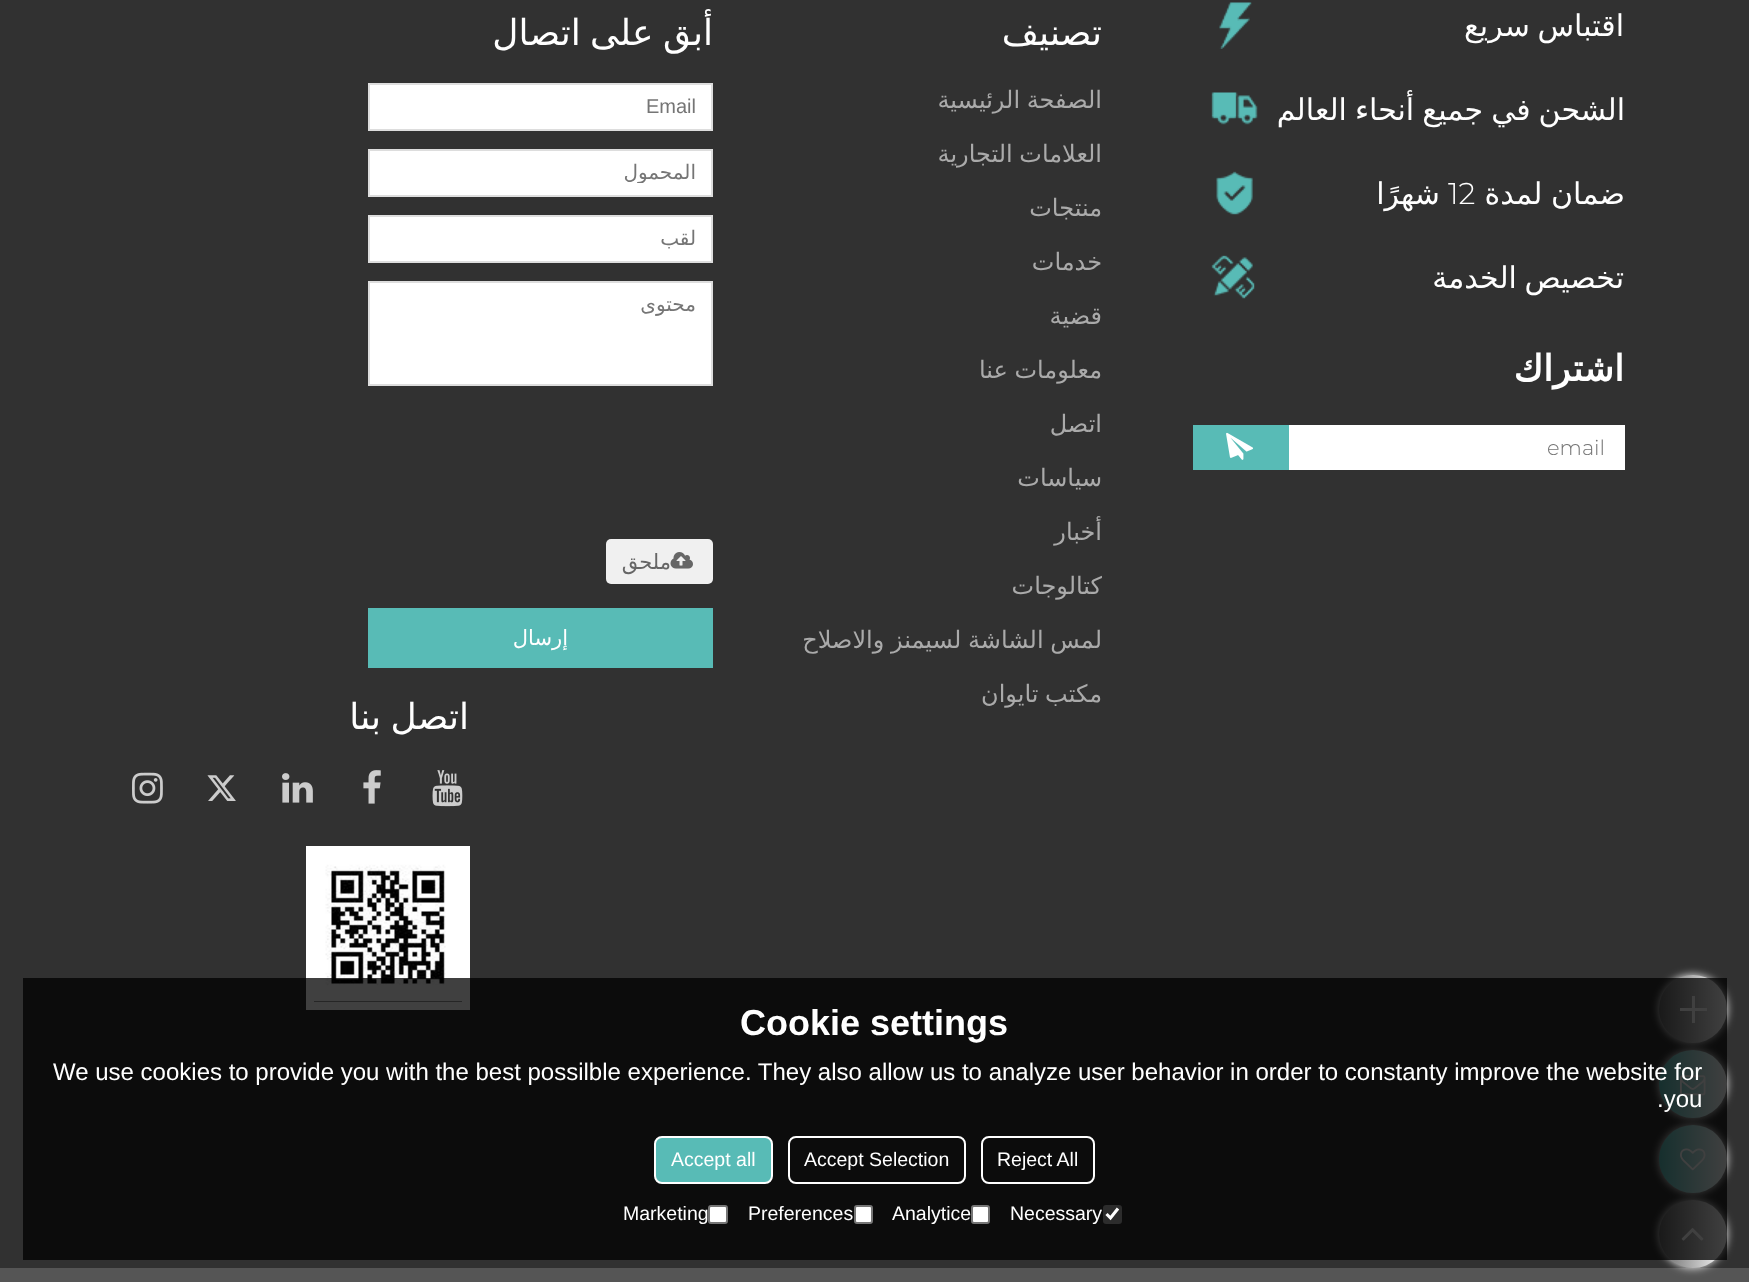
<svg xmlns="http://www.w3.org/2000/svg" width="1749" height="1282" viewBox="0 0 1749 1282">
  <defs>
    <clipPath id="clip1"><rect x="492" y="0" width="221" height="66"/></clipPath>
    <clipPath id="clip2"><rect x="384" y="161" width="312" height="22"/></clipPath>
    <clipPath id="clip3"><rect x="803" y="74" width="300" height="648"/></clipPath>
    <clipPath id="clip4"><rect x="1193" y="0" width="432" height="320"/></clipPath>
    <filter id="blur1" x="-50%" y="-200%" width="200%" height="500%"><feGaussianBlur stdDeviation="4"/></filter>
    <linearGradient id="g1" gradientUnits="userSpaceOnUse" x1="1659" y1="1009" x2="1727" y2="1009"><stop offset="0" stop-color="#666666"/><stop offset="1" stop-color="#ffffff"/></linearGradient>
    <linearGradient id="g2" gradientUnits="userSpaceOnUse" x1="1659" y1="1084" x2="1727" y2="1084"><stop offset="0" stop-color="#58bbb6"/><stop offset="1" stop-color="#ffffff"/></linearGradient>
    <linearGradient id="g3" gradientUnits="userSpaceOnUse" x1="1659" y1="1159" x2="1727" y2="1159"><stop offset="0" stop-color="#58bbb6"/><stop offset="1" stop-color="#ffffff"/></linearGradient>
    <linearGradient id="g4" gradientUnits="userSpaceOnUse" x1="1659" y1="1234" x2="1727" y2="1234"><stop offset="0" stop-color="#666666"/><stop offset="1" stop-color="#ffffff"/></linearGradient>
  </defs>
  <rect width="100%" height="100%" fill="#313131"/>
  <g clip-path="url(#clip1)">
    <text x="713" y="45" word-spacing="-2" font-family="DejaVu Sans" font-size="36" direction="rtl" fill="#ffffff">أبق على اتصال</text>
  </g>
  <rect x="369" y="84" width="343" height="46" fill="#ffffff" stroke="#dddddd" stroke-width="2"/>
  <text x="646" y="113" font-family="Liberation Sans" font-size="20" fill="#757575">Email</text>
  <rect x="369" y="150" width="343" height="46" fill="#ffffff" stroke="#dddddd" stroke-width="2"/>
  <g clip-path="url(#clip2)">
    <text x="696" y="179" font-family="DejaVu Sans" font-size="20" direction="rtl" fill="#757575">المحمول</text>
  </g>
  <rect x="369" y="216" width="343" height="46" fill="#ffffff" stroke="#dddddd" stroke-width="2"/>
  <text x="696" y="245" font-family="DejaVu Sans" font-size="20" direction="rtl" fill="#757575">لقب</text>
  <rect x="369" y="282" width="343" height="103" fill="#ffffff" stroke="#dddddd" stroke-width="2"/>
  <text x="696" y="311" font-family="DejaVu Sans" font-size="20" direction="rtl" fill="#757575">محتوى</text>
  <rect x="606" y="539" width="107" height="45" rx="5" fill="#f0f0f0"/>
  <text x="671" y="569" font-family="DejaVu Sans" font-size="21" direction="rtl" fill="#666666">ملحق</text>
  <image x="670" y="552" width="23" height="17" href="img1.png"/>
  <rect x="368" y="608" width="345" height="60" fill="#58bbb6"/>
  <text x="568" y="645" font-family="DejaVu Sans" font-size="21" direction="rtl" fill="#ffffff">إرسال</text>
  <text x="1102" y="45" font-family="DejaVu Sans" font-size="36" direction="rtl" fill="#ffffff">تصنيف</text>
  <text x="1102" y="108" word-spacing="-1" font-family="DejaVu Sans" font-size="24" direction="rtl" fill="#aaaaaa">الصفحة الرئيسية</text>
  <text x="1102" y="162" word-spacing="-1" font-family="DejaVu Sans" font-size="24" direction="rtl" fill="#aaaaaa">العلامات التجارية</text>
  <text x="1102" y="216" font-family="DejaVu Sans" font-size="24" direction="rtl" fill="#aaaaaa">منتجات</text>
  <text x="1102" y="270" font-family="DejaVu Sans" font-size="24" direction="rtl" fill="#aaaaaa">خدمات</text>
  <text x="1102" y="324" font-family="DejaVu Sans" font-size="24" direction="rtl" fill="#aaaaaa">قضية</text>
  <text x="1102" y="378" word-spacing="-1" font-family="DejaVu Sans" font-size="24" direction="rtl" fill="#aaaaaa">معلومات عنا</text>
  <text x="1102" y="432" font-family="DejaVu Sans" font-size="24" direction="rtl" fill="#aaaaaa">اتصل</text>
  <text x="1102" y="486" font-family="DejaVu Sans" font-size="24" direction="rtl" fill="#aaaaaa">سياسات</text>
  <text x="1102" y="540" font-family="DejaVu Sans" font-size="24" direction="rtl" fill="#aaaaaa">أخبار</text>
  <text x="1102" y="594" font-family="DejaVu Sans" font-size="24" direction="rtl" fill="#aaaaaa">كتالوجات</text>
  <g clip-path="url(#clip3)">
    <text x="1102" y="648" word-spacing="-1" font-family="DejaVu Sans" font-size="24" direction="rtl" fill="#aaaaaa">لمس الشاشة لسيمنز والاصلاح</text>
  </g>
  <text x="1102" y="702" word-spacing="-1" font-family="DejaVu Sans" font-size="24" direction="rtl" fill="#aaaaaa">مكتب تايوان</text>
  <image x="1219" y="2" width="33" height="47" href="img2.png"/>
  <text x="1624" y="36" word-spacing="-2" font-family="DejaVu Sans" font-size="30" direction="rtl" fill="#ffffff">اقتباس سريع</text>
  <image x="1211" y="92" width="47" height="33" href="img3.png"/>
  <g clip-path="url(#clip4)">
    <text x="1625" y="120" word-spacing="-1.5" font-family="DejaVu Sans" font-size="30" direction="rtl" fill="#ffffff">الشحن في جميع أنحاء العالم</text>
  </g>
  <image x="1216" y="171" width="37" height="44" href="img4.png"/>
  <text x="1440" y="204" font-family="DejaVu Sans" font-size="30" direction="rtl" fill="#ffffff">شهرًا</text>
  <text x="1448" y="204" font-family="Montserrat" font-size="30" font-weight="300" fill="#ffffff">12</text>
  <text x="1625" y="204" word-spacing="-1" font-family="DejaVu Sans" font-size="30" direction="rtl" fill="#ffffff">ضمان لمدة</text>
  <image x="1211" y="255" width="44" height="44" href="img5.png"/>
  <text x="1624" y="288" word-spacing="-2" font-family="DejaVu Sans" font-size="30" direction="rtl" fill="#ffffff">تخصيص الخدمة</text>
  <text x="1624" y="381" font-family="DejaVu Sans" font-size="36" font-weight="bold" direction="rtl" fill="#ffffff">اشتراك</text>
  <rect x="1193" y="425" width="96" height="45" fill="#58bbb6"/>
  <image x="1226" y="432" width="27" height="28" href="img6.png"/>
  <rect x="1289" y="425" width="336" height="45" fill="#ffffff"/>
  <text x="1547" y="455" font-family="Montserrat" font-size="21" font-weight="300" fill="#757575">email</text>
  <text x="469" y="729" word-spacing="-2" font-family="DejaVu Sans" font-size="36" direction="rtl" fill="#ffffff">اتصل بنا</text>
  <image x="132" y="772" width="31" height="32" href="img7.png"/>
  <image x="207" y="775" width="29" height="26" href="img8.png"/>
  <image x="282" y="773" width="31" height="30" href="img9.png"/>
  <image x="363" y="770" width="18" height="34" href="img10.png"/>
  <image x="432" y="770" width="31" height="37" href="img11.png"/>
  <rect x="310" y="850" width="156" height="156" fill="none" stroke="#ffffff" stroke-width="8"/>
  <image x="314" y="854" width="148" height="148" href="img12.png"/>
  <rect x="0" y="1268" width="1749" height="14" fill="#555555"/>
  <rect x="1659" y="975" width="68" height="68" rx="34" fill="#eeeeee" filter="url(#blur1)"/>
  <circle cx="1693" cy="1009" r="34" fill="url(#g1)"/>
  <rect x="1680" y="1008" width="27" height="3" fill="#ffffff"/>
  <rect x="1692" y="996" width="3" height="27" fill="#ffffff"/>
  <rect x="1659" y="1050" width="68" height="68" rx="34" fill="#eeeeee" filter="url(#blur1)"/>
  <circle cx="1693" cy="1084" r="34" fill="url(#g2)"/>
  <image x="1680" y="1075" width="26" height="21" href="img13.png"/>
  <rect x="1659" y="1125" width="68" height="68" rx="34" fill="#eeeeee" filter="url(#blur1)"/>
  <circle cx="1693" cy="1159" r="34" fill="url(#g3)"/>
  <image x="1680" y="1148" width="26" height="23" href="img14.png"/>
  <rect x="1659" y="1200" width="68" height="68" rx="34" fill="#eeeeee" filter="url(#blur1)"/>
  <circle cx="1693" cy="1234" r="34" fill="url(#g4)"/>
  <image x="1681" y="1228" width="23" height="13" href="img15.png"/>
  <rect x="23" y="978" width="1704" height="282" fill="#000000" fill-opacity="0.75"/>
  <text x="740" y="1035" font-family="Liberation Sans" font-size="36" font-weight="bold" fill="#ffffff">Cookie settings</text>
  <text x="53" y="1080" font-family="Liberation Sans" font-size="24" fill="#ffffff">We use cookies to provide you with the best possilble experience. They also allow us to analyze user behavior in order to constanty improve the website for</text>
  <text x="1657" y="1107" font-family="Liberation Sans" font-size="24" fill="#ffffff">.you</text>
  <rect x="655" y="1137" width="117" height="46" rx="7" fill="#58bbb6" stroke="#ffffff" stroke-width="2"/>
  <text x="671" y="1166" font-family="Liberation Sans" font-size="19.5" fill="#ffffff">Accept all</text>
  <rect x="789" y="1137" width="176" height="46" rx="7" fill="none" stroke="#ffffff" stroke-width="2"/>
  <text x="804" y="1166" font-family="Liberation Sans" font-size="19.5" fill="#ffffff">Accept Selection</text>
  <rect x="982" y="1137" width="112" height="46" rx="7" fill="none" stroke="#ffffff" stroke-width="2"/>
  <text x="997" y="1166" font-family="Liberation Sans" font-size="19.5" fill="#ffffff">Reject All</text>
  <text x="623" y="1220" font-family="Liberation Sans" font-size="19.5" fill="#ffffff">Marketing</text>
  <rect x="709" y="1206" width="18" height="17" rx="2" fill="#ffffff" stroke="#767676" stroke-width="2"/>
  <text x="748" y="1220" font-family="Liberation Sans" font-size="19.5" fill="#ffffff">Preferences</text>
  <rect x="855" y="1206" width="17" height="17" rx="2" fill="#ffffff" stroke="#767676" stroke-width="2"/>
  <text x="892" y="1220" font-family="Liberation Sans" font-size="19.5" fill="#ffffff">Analytice</text>
  <rect x="972" y="1206" width="17" height="17" rx="2" fill="#ffffff" stroke="#767676" stroke-width="2"/>
  <text x="1010" y="1220" font-family="Liberation Sans" font-size="19.5" fill="#ffffff">Necessary</text>
  <rect x="1103" y="1205" width="19" height="19" rx="3" fill="#767676" fill-opacity="0.3"/>
  <path d="M1106.5 1214L1110.5 1218L1118 1208.5" fill="none" stroke="#ffffff" stroke-width="3.1"/>
</svg>
